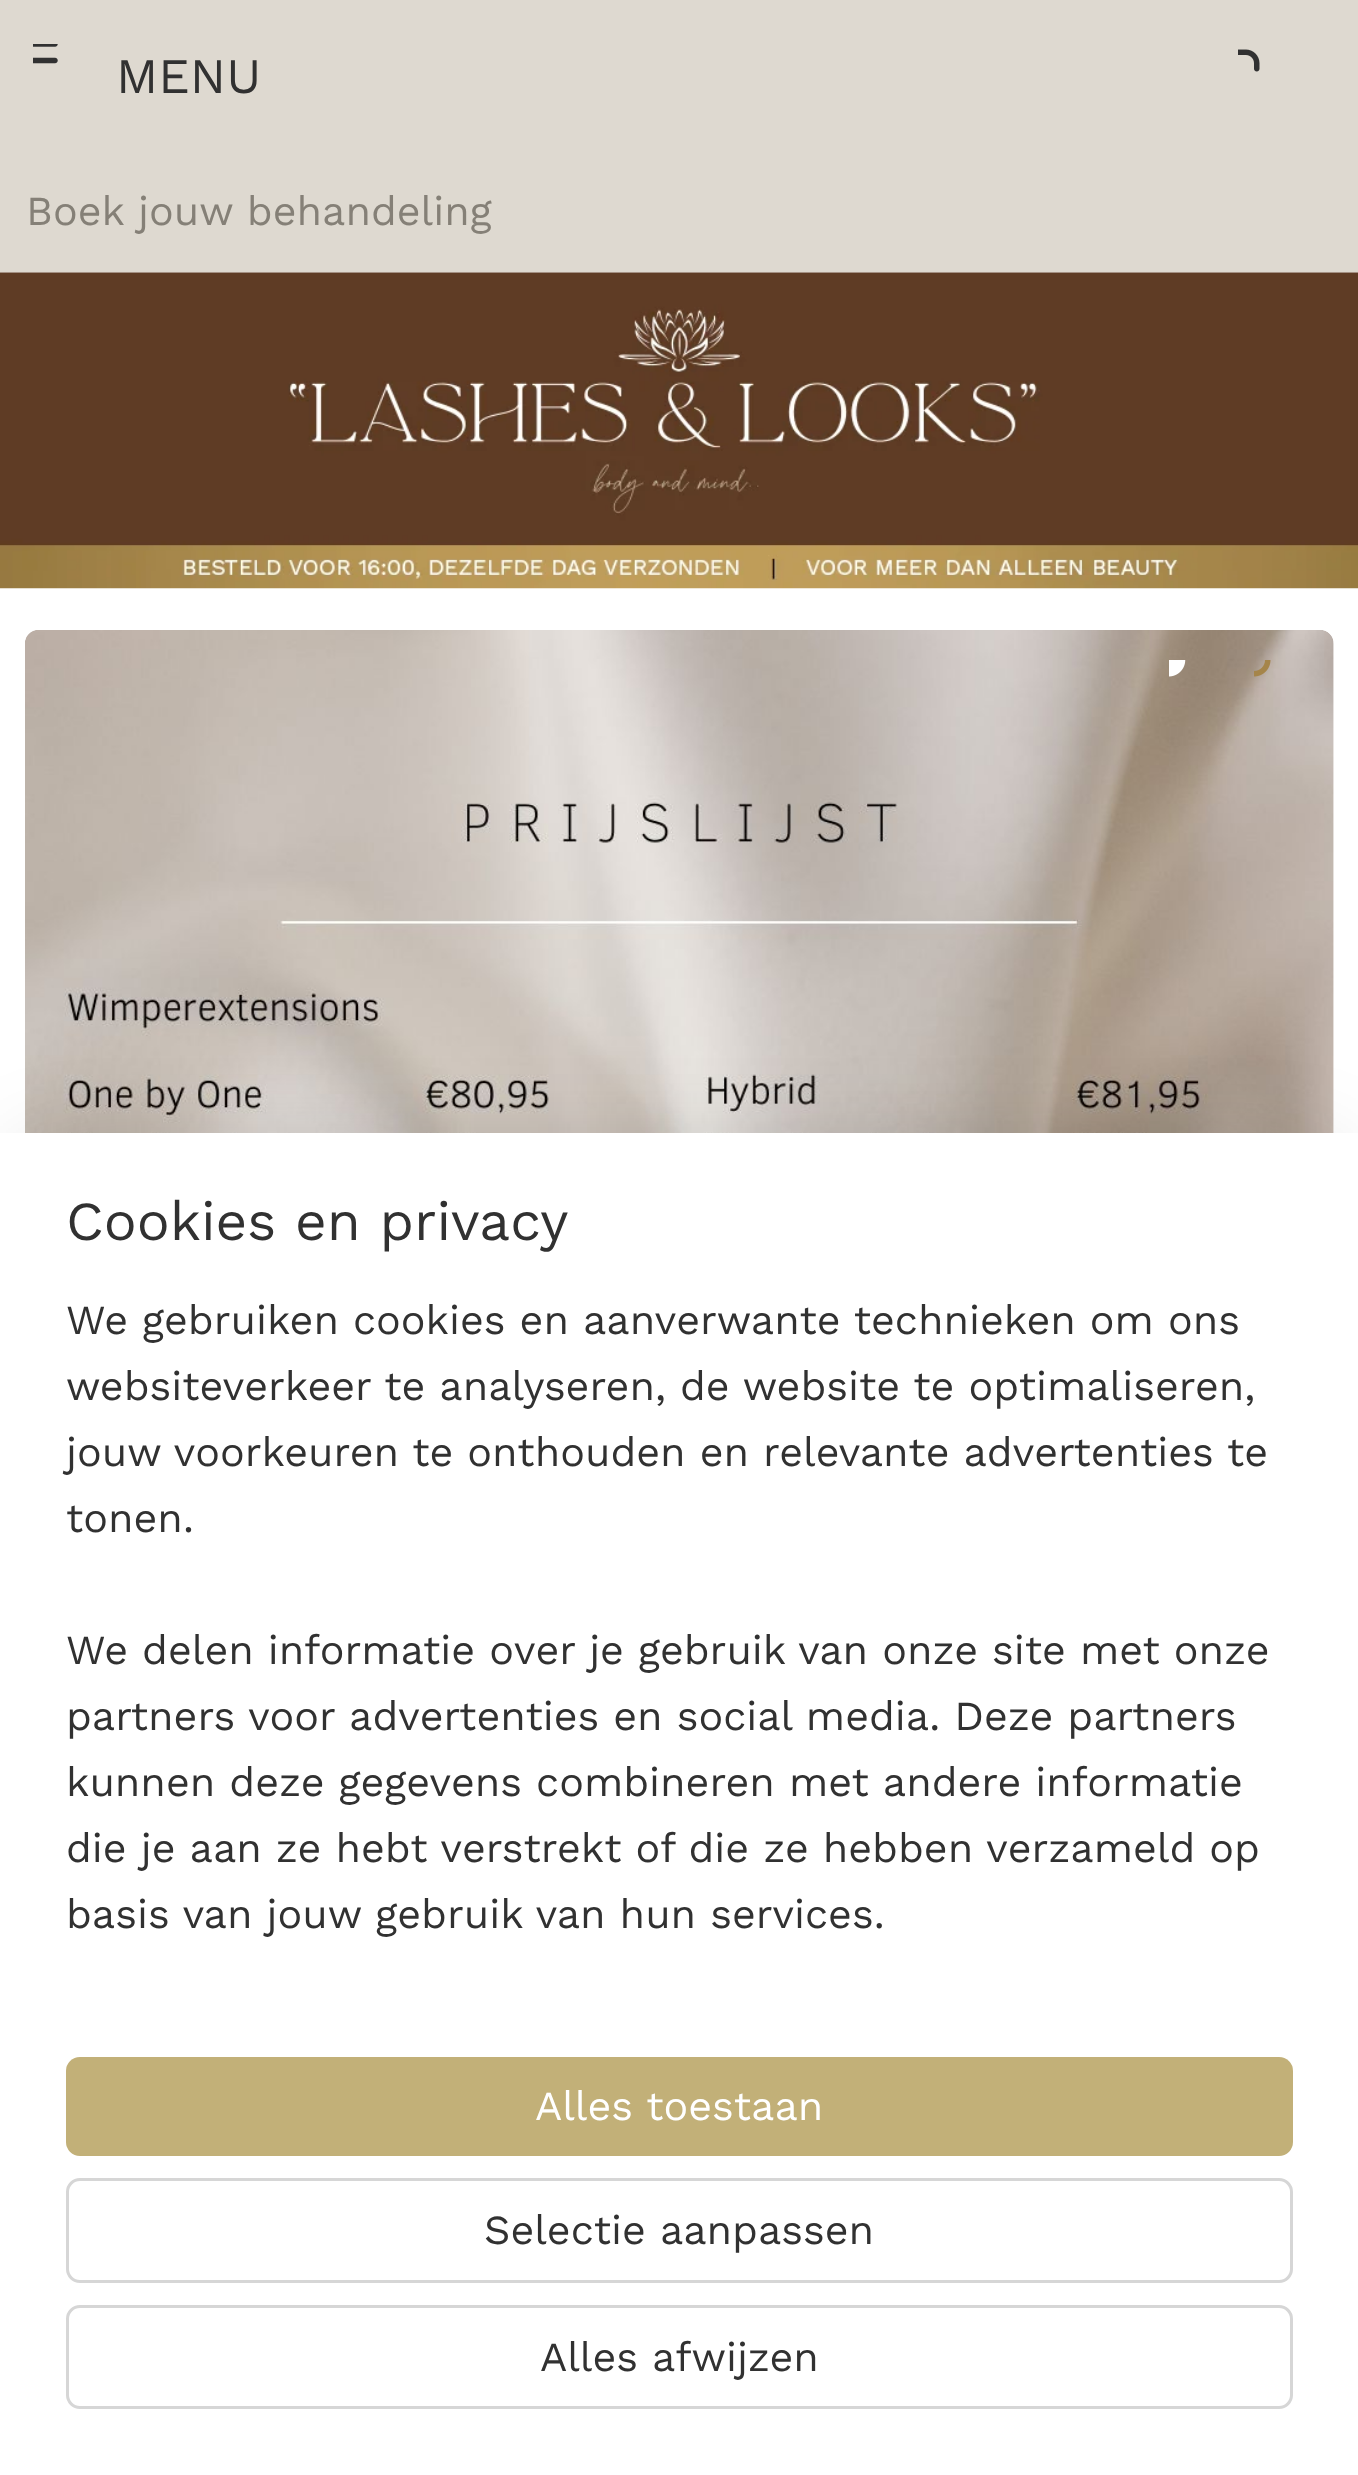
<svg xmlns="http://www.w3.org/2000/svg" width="1358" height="2475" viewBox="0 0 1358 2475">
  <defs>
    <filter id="blur1" x="-50%" y="-200%" width="200%" height="500%"><feGaussianBlur stdDeviation="49.5"/></filter>
  </defs>
  <rect width="100%" height="100%" fill="#ffffff"/>
  <rect x="0" y="0" width="1358" height="272" fill="#ded9d0"/>
  <image x="33" y="44" width="25" height="20" href="img1.png"/>
  <text x="116" y="93" font-family="Work Sans" font-size="49.5" fill="#313131">MENU</text>
  <image x="1238" y="49" width="22" height="23" href="img2.png"/>
  <text x="26" y="225" font-family="Work Sans" font-size="41.25" fill="#858077">Boek jouw behandeling</text>
  <image x="0" y="272" width="1358" height="317" href="img3.png"/>
  <image x="25" y="630" width="1309" height="503" href="img4.png"/>
  <image x="1169" y="660" width="17" height="17" href="img5.png"/>
  <image x="1254" y="660" width="17" height="17" href="img6.png"/>
  <rect x="28" y="1161" width="1303" height="1287" fill="#000000" fill-opacity="0.2" filter="url(#blur1)"/>
  <rect x="0" y="1133" width="1358" height="1342" fill="#ffffff"/>
  <text x="66" y="1240" font-family="Work Sans" font-size="55" fill="#313131">Cookies en privacy</text>
  <text x="66" y="1334" font-family="Work Sans" font-size="41.25" fill="#313131">We gebruiken cookies en aanverwante technieken om ons</text>
  <text x="66" y="1400" font-family="Work Sans" font-size="41.25" fill="#313131">websiteverkeer te analyseren, de website te optimaliseren,</text>
  <text x="66" y="1466" font-family="Work Sans" font-size="41.25" fill="#313131">jouw voorkeuren te onthouden en relevante advertenties te</text>
  <text x="66" y="1532" font-family="Work Sans" font-size="41.25" fill="#313131">tonen.</text>
  <text x="66" y="1664" font-family="Work Sans" font-size="41.25" fill="#313131">We delen informatie over je gebruik van onze site met onze</text>
  <text x="66" y="1730" font-family="Work Sans" font-size="41.25" fill="#313131">partners voor advertenties en social media. Deze partners</text>
  <text x="66" y="1796" font-family="Work Sans" font-size="41.25" fill="#313131">kunnen deze gegevens combineren met andere informatie</text>
  <text x="66" y="1862" font-family="Work Sans" font-size="41.25" fill="#313131">die je aan ze hebt verstrekt of die ze hebben verzameld op</text>
  <text x="66" y="1928" font-family="Work Sans" font-size="41.25" fill="#313131">basis van jouw gebruik van hun services.</text>
  <rect x="66" y="2057" width="1227" height="99" rx="14" fill="#c2b078"/>
  <text x="535" y="2120" font-family="Work Sans" font-size="41.25" fill="#ffffff">Alles toestaan</text>
  <rect x="67.5" y="2179.5" width="1224" height="102" rx="12.5" fill="none" stroke="#d6d6d6" stroke-width="3"/>
  <text x="484" y="2244" font-family="Work Sans" font-size="41.25" fill="#313131">Selectie aanpassen</text>
  <rect x="67.5" y="2306.5" width="1224" height="101" rx="12.5" fill="none" stroke="#d6d6d6" stroke-width="3"/>
  <text x="540" y="2371" font-family="Work Sans" font-size="41.25" fill="#313131">Alles afwijzen</text>
</svg>
